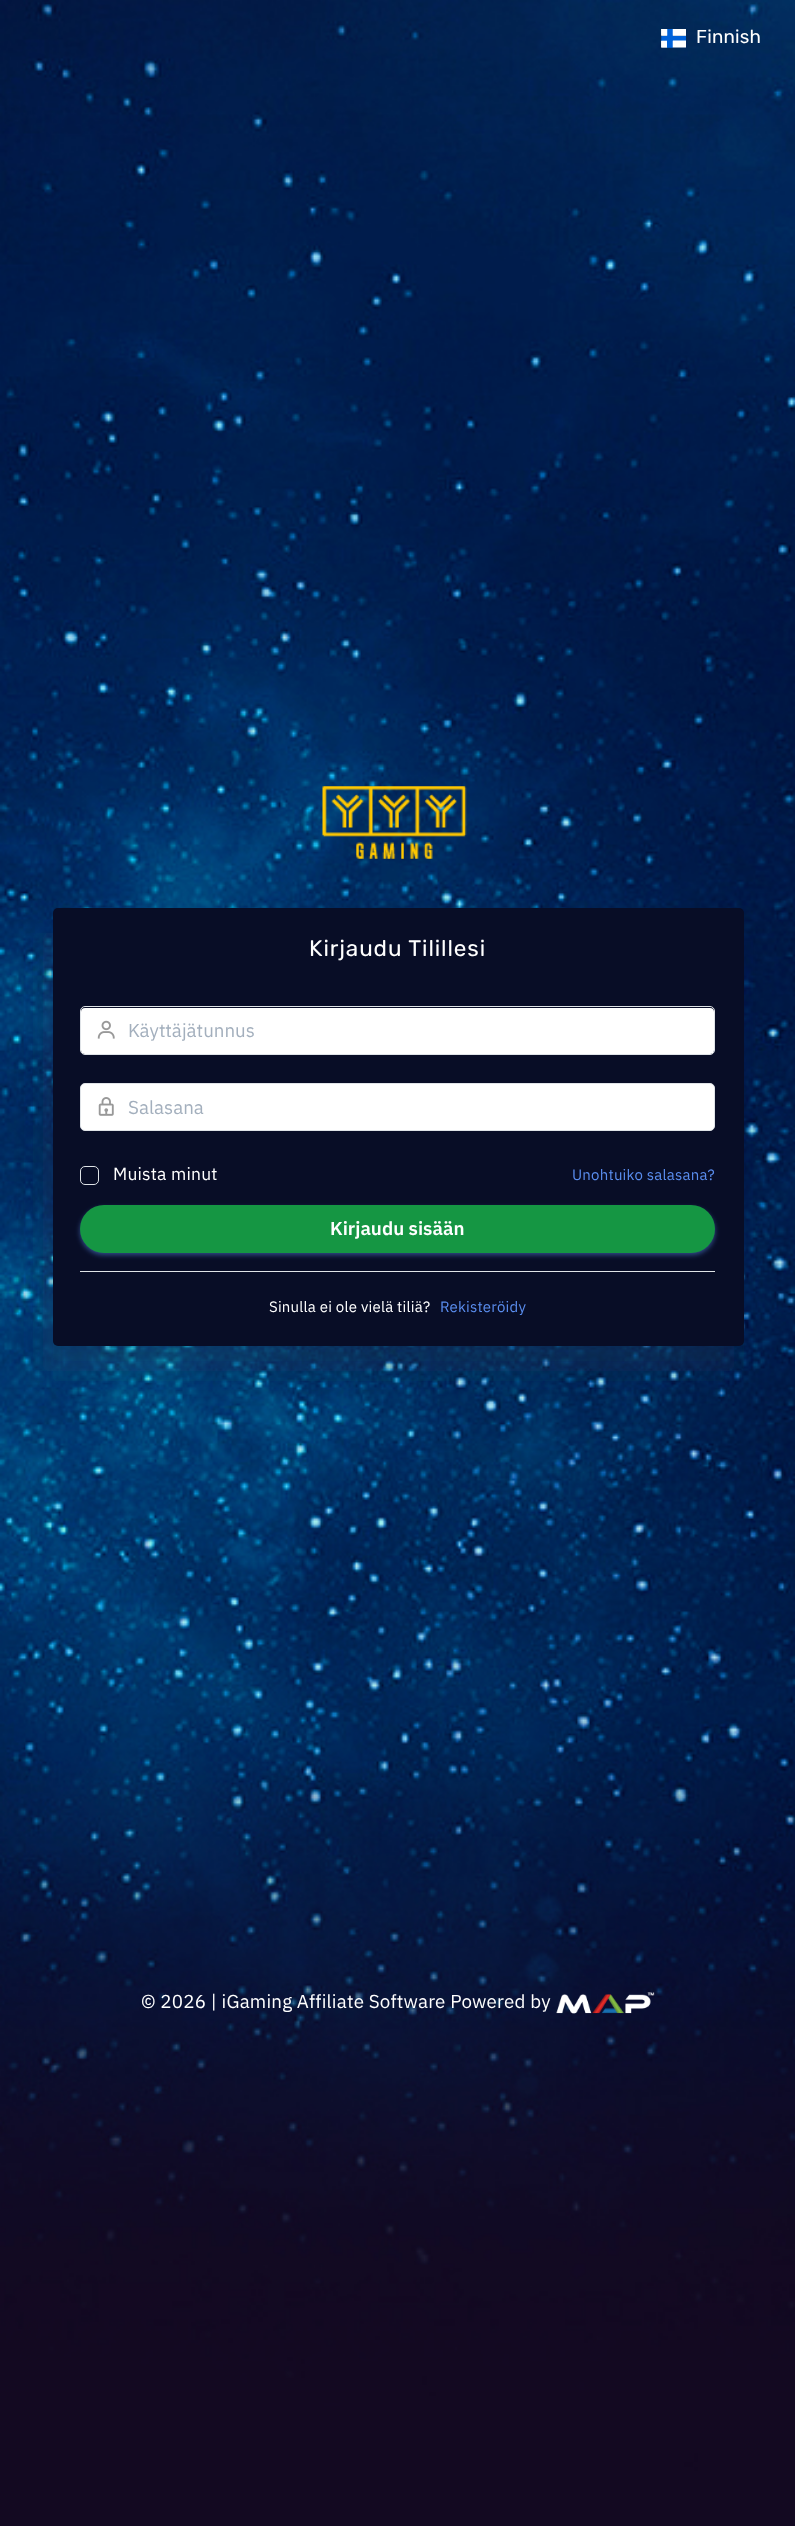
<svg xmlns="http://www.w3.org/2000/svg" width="795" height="2526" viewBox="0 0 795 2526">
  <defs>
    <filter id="blur1" x="-50%" y="-200%" width="200%" height="500%"><feGaussianBlur stdDeviation="15.5"/></filter>
    <filter id="blur2" x="-50%" y="-200%" width="200%" height="500%"><feGaussianBlur stdDeviation="2.5"/></filter>
  </defs>
  <rect width="100%" height="100%" fill="#ffffff"/>
  <image x="0" y="0" width="795" height="2526" href="img1.png"/>
  <image x="661" y="29" width="25" height="19" href="img2.png"/>
  <text x="696" y="43" font-family="Rubik" font-size="18.75" letter-spacing="0.2" fill="#ffffff">Finnish</text>
  <image x="322" y="786" width="145" height="73" href="img3.png"/>
  <rect x="43" y="933" width="691" height="438" rx="5" fill="#192a46" fill-opacity="0.3" filter="url(#blur1)"/>
  <rect x="53" y="908" width="691" height="438" rx="5" fill="#080d26"/>
  <text x="309" y="956" font-family="Rubik" font-size="22.5" letter-spacing="0.9" fill="#ffffff">Kirjaudu Tilillesi</text>
  <rect x="81" y="1008" width="633" height="46" rx="4" fill="#ffffff"/>
  <rect x="80.5" y="1006.5" width="634" height="48" rx="4.5" fill="none" stroke="#dfe3e7"/>
  <image x="97" y="1020" width="18" height="19" href="img4.png"/>
  <text x="128" y="1037" font-family="IBM Plex Sans" font-size="18.75" fill="#a3afbd">Käyttäjätunnus</text>
  <rect x="80.5" y="1083.5" width="634" height="47" rx="4.5" fill="#ffffff" stroke="#dfe3e7"/>
  <image x="98" y="1097" width="16" height="19" href="img5.png"/>
  <text x="128" y="1114" font-family="IBM Plex Sans" font-size="18.75" fill="#a3afbd">Salasana</text>
  <rect x="80.5" y="1166.5" width="18" height="18" rx="4.5" fill="none" stroke="#dfe3e7"/>
  <text x="113" y="1180" font-family="IBM Plex Sans" font-size="17.5" letter-spacing="0.2" fill="#ffffff">Muista minut</text>
  <text x="572" y="1180" font-family="IBM Plex Sans" font-size="15" letter-spacing="0.2" fill="#5a8dee">Unohtuiko salasana?</text>
  <rect x="80" y="1208" width="635" height="47" rx="23.5" fill="#5a8dee" fill-opacity="0.5" filter="url(#blur2)"/>
  <rect x="80" y="1205" width="635" height="48" rx="24" fill="#159643"/>
  <text x="330" y="1235" font-family="IBM Plex Sans" font-size="18.75" font-weight="600" fill="#ffffff">Kirjaudu sisään</text>
  <rect x="80" y="1271" width="635" height="1" fill="#dfe3e7"/>
  <text x="269" y="1312" font-family="IBM Plex Sans" font-size="15" letter-spacing="0.2" fill="#ffffff">Sinulla ei ole vielä tiliä?</text>
  <text x="440" y="1312" font-family="IBM Plex Sans" font-size="15" letter-spacing="0.2" fill="#5a8dee">Rekisteröidy</text>
  <text x="141" y="2008" font-family="IBM Plex Sans" font-size="18.75" letter-spacing="0.2" fill="#ffffff">© 2026 | iGaming Affiliate Software Powered by</text>
  <image x="556" y="1992" width="99" height="22" href="img6.png"/>
</svg>
